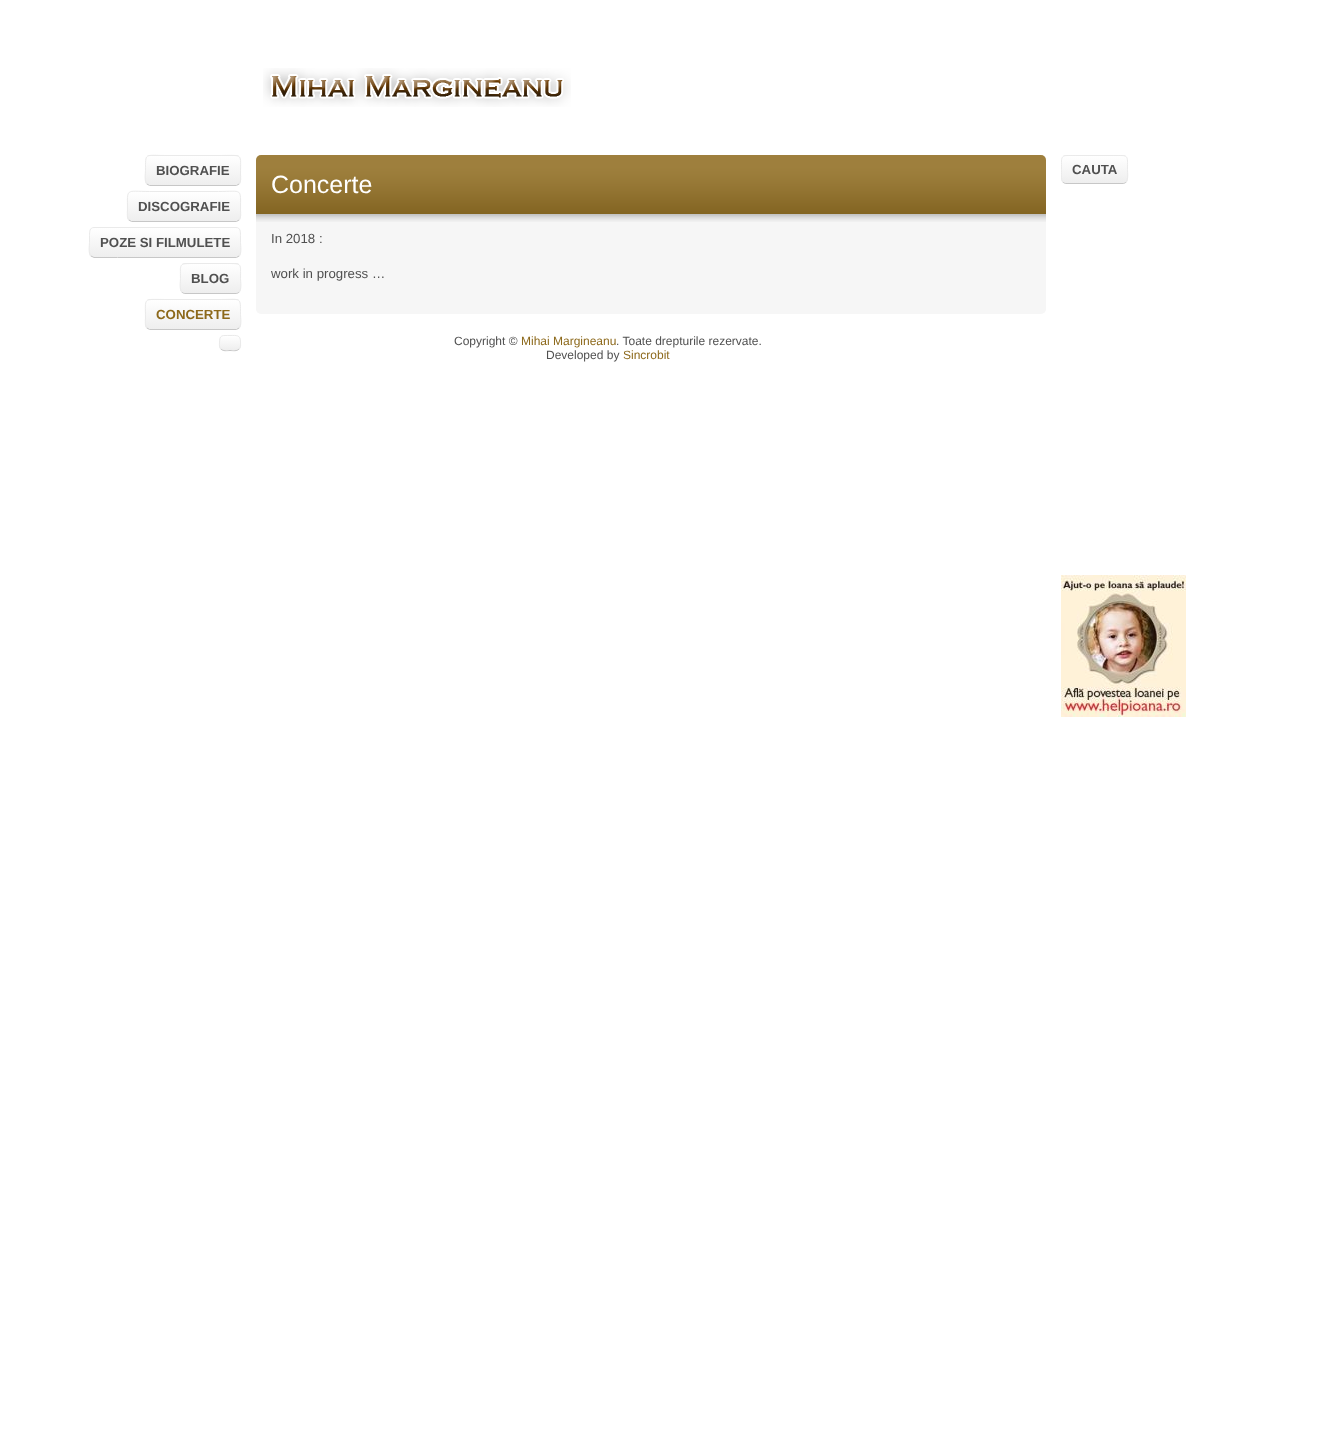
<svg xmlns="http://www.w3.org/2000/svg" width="1331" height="1438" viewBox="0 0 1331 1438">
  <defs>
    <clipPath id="clip1"><rect x="145" y="155" width="96" height="31" rx="5"/></clipPath>
    <linearGradient id="g1" gradientUnits="userSpaceOnUse" x1="146" y1="127" x2="146" y2="156"><stop offset="0" stop-color="#ffffff"/><stop offset="1" stop-color="#eeeeee"/></linearGradient>
    <linearGradient id="g2" gradientUnits="userSpaceOnUse" x1="146" y1="156" x2="146" y2="185"><stop offset="0" stop-color="#ffffff"/><stop offset="1" stop-color="#eeeeee"/></linearGradient>
    <clipPath id="clip2"><rect x="127" y="191" width="114" height="31" rx="5"/></clipPath>
    <linearGradient id="g3" gradientUnits="userSpaceOnUse" x1="128" y1="192" x2="128" y2="221"><stop offset="0" stop-color="#ffffff"/><stop offset="1" stop-color="#eeeeee"/></linearGradient>
    <clipPath id="clip3"><rect x="89" y="227" width="152" height="31" rx="5"/></clipPath>
    <linearGradient id="g4" gradientUnits="userSpaceOnUse" x1="90" y1="228" x2="90" y2="257"><stop offset="0" stop-color="#ffffff"/><stop offset="1" stop-color="#eeeeee"/></linearGradient>
    <clipPath id="clip4"><rect x="180" y="263" width="61" height="31" rx="5"/></clipPath>
    <linearGradient id="g5" gradientUnits="userSpaceOnUse" x1="181" y1="235" x2="181" y2="264"><stop offset="0" stop-color="#ffffff"/><stop offset="1" stop-color="#eeeeee"/></linearGradient>
    <linearGradient id="g6" gradientUnits="userSpaceOnUse" x1="181" y1="264" x2="181" y2="293"><stop offset="0" stop-color="#ffffff"/><stop offset="1" stop-color="#eeeeee"/></linearGradient>
    <clipPath id="clip5"><rect x="145" y="299" width="96" height="31" rx="5"/></clipPath>
    <linearGradient id="g7" gradientUnits="userSpaceOnUse" x1="146" y1="271" x2="146" y2="300"><stop offset="0" stop-color="#ffffff"/><stop offset="1" stop-color="#eeeeee"/></linearGradient>
    <linearGradient id="g8" gradientUnits="userSpaceOnUse" x1="146" y1="300" x2="146" y2="329"><stop offset="0" stop-color="#ffffff"/><stop offset="1" stop-color="#eeeeee"/></linearGradient>
    <clipPath id="clip6"><rect x="219" y="335" width="22" height="16" rx="5"/></clipPath>
    <linearGradient id="g9" gradientUnits="userSpaceOnUse" x1="220" y1="336" x2="220" y2="350"><stop offset="0" stop-color="#ffffff"/><stop offset="1" stop-color="#eeeeee"/></linearGradient>
    <clipPath id="clip7"><rect x="1061" y="155" width="67" height="29" rx="5"/></clipPath>
    <linearGradient id="g10" gradientUnits="userSpaceOnUse" x1="1062" y1="129" x2="1062" y2="156"><stop offset="0" stop-color="#ffffff"/><stop offset="1" stop-color="#eeeeee"/></linearGradient>
    <linearGradient id="g11" gradientUnits="userSpaceOnUse" x1="1062" y1="156" x2="1062" y2="183"><stop offset="0" stop-color="#ffffff"/><stop offset="1" stop-color="#eeeeee"/></linearGradient>
    <clipPath id="clip8"><rect x="1061" y="155" width="180" height="32"/></clipPath>
  </defs>
  <rect width="100%" height="100%" fill="#ffffff"/>
  <image x="263" y="68" width="308" height="39" href="img1.png"/>
  <g clip-path="url(#clip1)">
    <rect x="145" y="155" width="96" height="1" fill="url(#g1)"/>
    <rect x="145" y="156" width="96" height="29" fill="url(#g2)"/>
  </g>
  <path d="M239 184L236.5 185.5H149.5L147 184" fill="none" stroke="#c7c7c7"/>
  <path d="M147 184C144 181.5 145.5 173.5 145.5 170.5C145.5 152.5 144.5 155.5 164.5 155.5H221.5C243.5 155.5 240.5 153 240.5 174C240.5 177 241.5 181.5 239 184" fill="none" stroke="#eaeaea"/>
  <text x="156" y="175" font-family="Liberation Sans" font-size="13.25" font-weight="bold" fill="#505050">BIOGRAFIE</text>
  <g clip-path="url(#clip2)">
    <rect x="127" y="192" width="114" height="29" fill="url(#g3)"/>
  </g>
  <path d="M239 220L236.5 221.5H131.5L129 220" fill="none" stroke="#c7c7c7"/>
  <path d="M129 220C126.5 217.5 127.5 213 127.5 210C127.5 187.5 125 191.5 149.5 191.5H218.5C243 191.5 240.5 187.5 240.5 210C240.5 213 241.5 217.5 239 220" fill="none" stroke="#eaeaea"/>
  <text x="138" y="211" font-family="Liberation Sans" font-size="13.25" font-weight="bold" fill="#505050">DISCOGRAFIE</text>
  <g clip-path="url(#clip3)">
    <rect x="89" y="228" width="152" height="29" fill="url(#g4)"/>
  </g>
  <path d="M239 256L236.5 257.5H117.5H94L91 256" fill="none" stroke="#c7c7c7"/>
  <path d="M91 256C88 253.5 89.5 245.5 89.5 242.5V235.5C89.5 232 89.5 227.5 94 227.5H236C240.5 227.5 240.5 232 240.5 235.5V242.5C240.5 245.5 242 253.5 239 256" fill="none" stroke="#eaeaea"/>
  <text x="100" y="247" font-family="Liberation Sans" font-size="13.25" font-weight="bold" fill="#505050">POZE SI FILMULETE</text>
  <g clip-path="url(#clip4)">
    <rect x="180" y="263" width="61" height="1" fill="url(#g5)"/>
    <rect x="180" y="264" width="61" height="29" fill="url(#g6)"/>
  </g>
  <path d="M239 292C238.5 293 237 293.5 236 293.5H185C184 293.5 182.5 293 182 292" fill="none" stroke="#c7c7c7"/>
  <path d="M182 292C179 289.5 180.5 281.5 180.5 278.5C180.5 263.5 178.5 263.5 193.5 263.5H227.5C242.5 263.5 240.5 263.5 240.5 278.5C240.5 281.5 242 289.5 239 292" fill="none" stroke="#eaeaea"/>
  <text x="191" y="283" font-family="Liberation Sans" font-size="13.25" font-weight="bold" fill="#505050">BLOG</text>
  <g clip-path="url(#clip5)">
    <rect x="145" y="299" width="96" height="1" fill="url(#g7)"/>
    <rect x="145" y="300" width="96" height="29" fill="url(#g8)"/>
  </g>
  <path d="M239 328L236.5 329.5H149.5L147 328" fill="none" stroke="#c7c7c7"/>
  <path d="M147 328C144.5 325.5 145.5 321 145.5 318C145.5 297 142.5 299.5 164.5 299.5H221.5C241.5 299.5 240.5 296.5 240.5 314.5C240.5 317.5 242 325.5 239 328" fill="none" stroke="#eaeaea"/>
  <text x="156" y="319" font-family="Liberation Sans" font-size="13.25" font-weight="bold" fill="#8d691b">CONCERTE</text>
  <g clip-path="url(#clip6)">
    <rect x="219" y="336" width="22" height="14" fill="url(#g9)"/>
  </g>
  <path d="M239 349C237 351.5 233 350.5 230 350.5C227 350.5 223 351.5 221 349" fill="none" stroke="#c7c7c7"/>
  <path d="M221 349C219 347.5 219.5 345 219.5 343C219.5 334.5 222 335.5 230 335.5C236.5 335.5 240.5 334.5 240.5 342C240.5 344.5 241 347.5 239 349" fill="none" stroke="#eaeaea"/>
  <rect x="256" y="155" width="790" height="159" rx="5" fill="#f6f6f6"/>
  <image x="256" y="214" width="790" height="8" href="img2.png"/>
  <image x="256" y="155" width="790" height="59" href="img3.png"/>
  <text x="271" y="193" font-family="Liberation Sans" font-size="25" fill="#ffffff">Concerte</text>
  <text x="271" y="243" font-family="Liberation Sans" font-size="13.25" fill="#505050">In 2018 :</text>
  <text x="271" y="278" font-family="Liberation Sans" font-size="13.25" fill="#505050">work in progress …</text>
  <g clip-path="url(#clip7)">
    <rect x="1061" y="155" width="67" height="1" fill="url(#g10)"/>
    <rect x="1061" y="156" width="67" height="27" fill="url(#g11)"/>
  </g>
  <path d="M1126 182C1125.5 183 1124 183.5 1123 183.5H1066C1065 183.5 1063.5 183 1063 182" fill="none" stroke="#c7c7c7"/>
  <g clip-path="url(#clip8)">
    <path d="M1063 182C1060.5 179.5 1061.5 172.5 1061.5 169.5C1061.5 154.5 1060 155.5 1075.5 155.5H1113.5C1129 155.5 1127.5 154.5 1127.5 169.5C1127.5 172.5 1128.5 179.5 1126 182" fill="none" stroke="#eaeaea"/>
  </g>
  <text x="1072" y="174" font-family="Liberation Sans" font-size="13.25" font-weight="bold" fill="#505050">CAUTA</text>
  <image x="1061" y="575" width="125" height="142" href="img4.png"/>
  <text x="454" y="345" font-family="Liberation Sans" font-size="12" fill="#505050">Copyright ©</text>
  <text x="521" y="345" font-family="Liberation Sans" font-size="12" fill="#8d691b">Mihai Margineanu</text>
  <text x="616" y="345" font-family="Liberation Sans" font-size="12" fill="#505050">. Toate drepturile rezervate.</text>
  <text x="546" y="359" font-family="Liberation Sans" font-size="12" fill="#505050">Developed by</text>
  <text x="623" y="359" font-family="Liberation Sans" font-size="12" fill="#8d691b">Sincrobit</text>
</svg>
